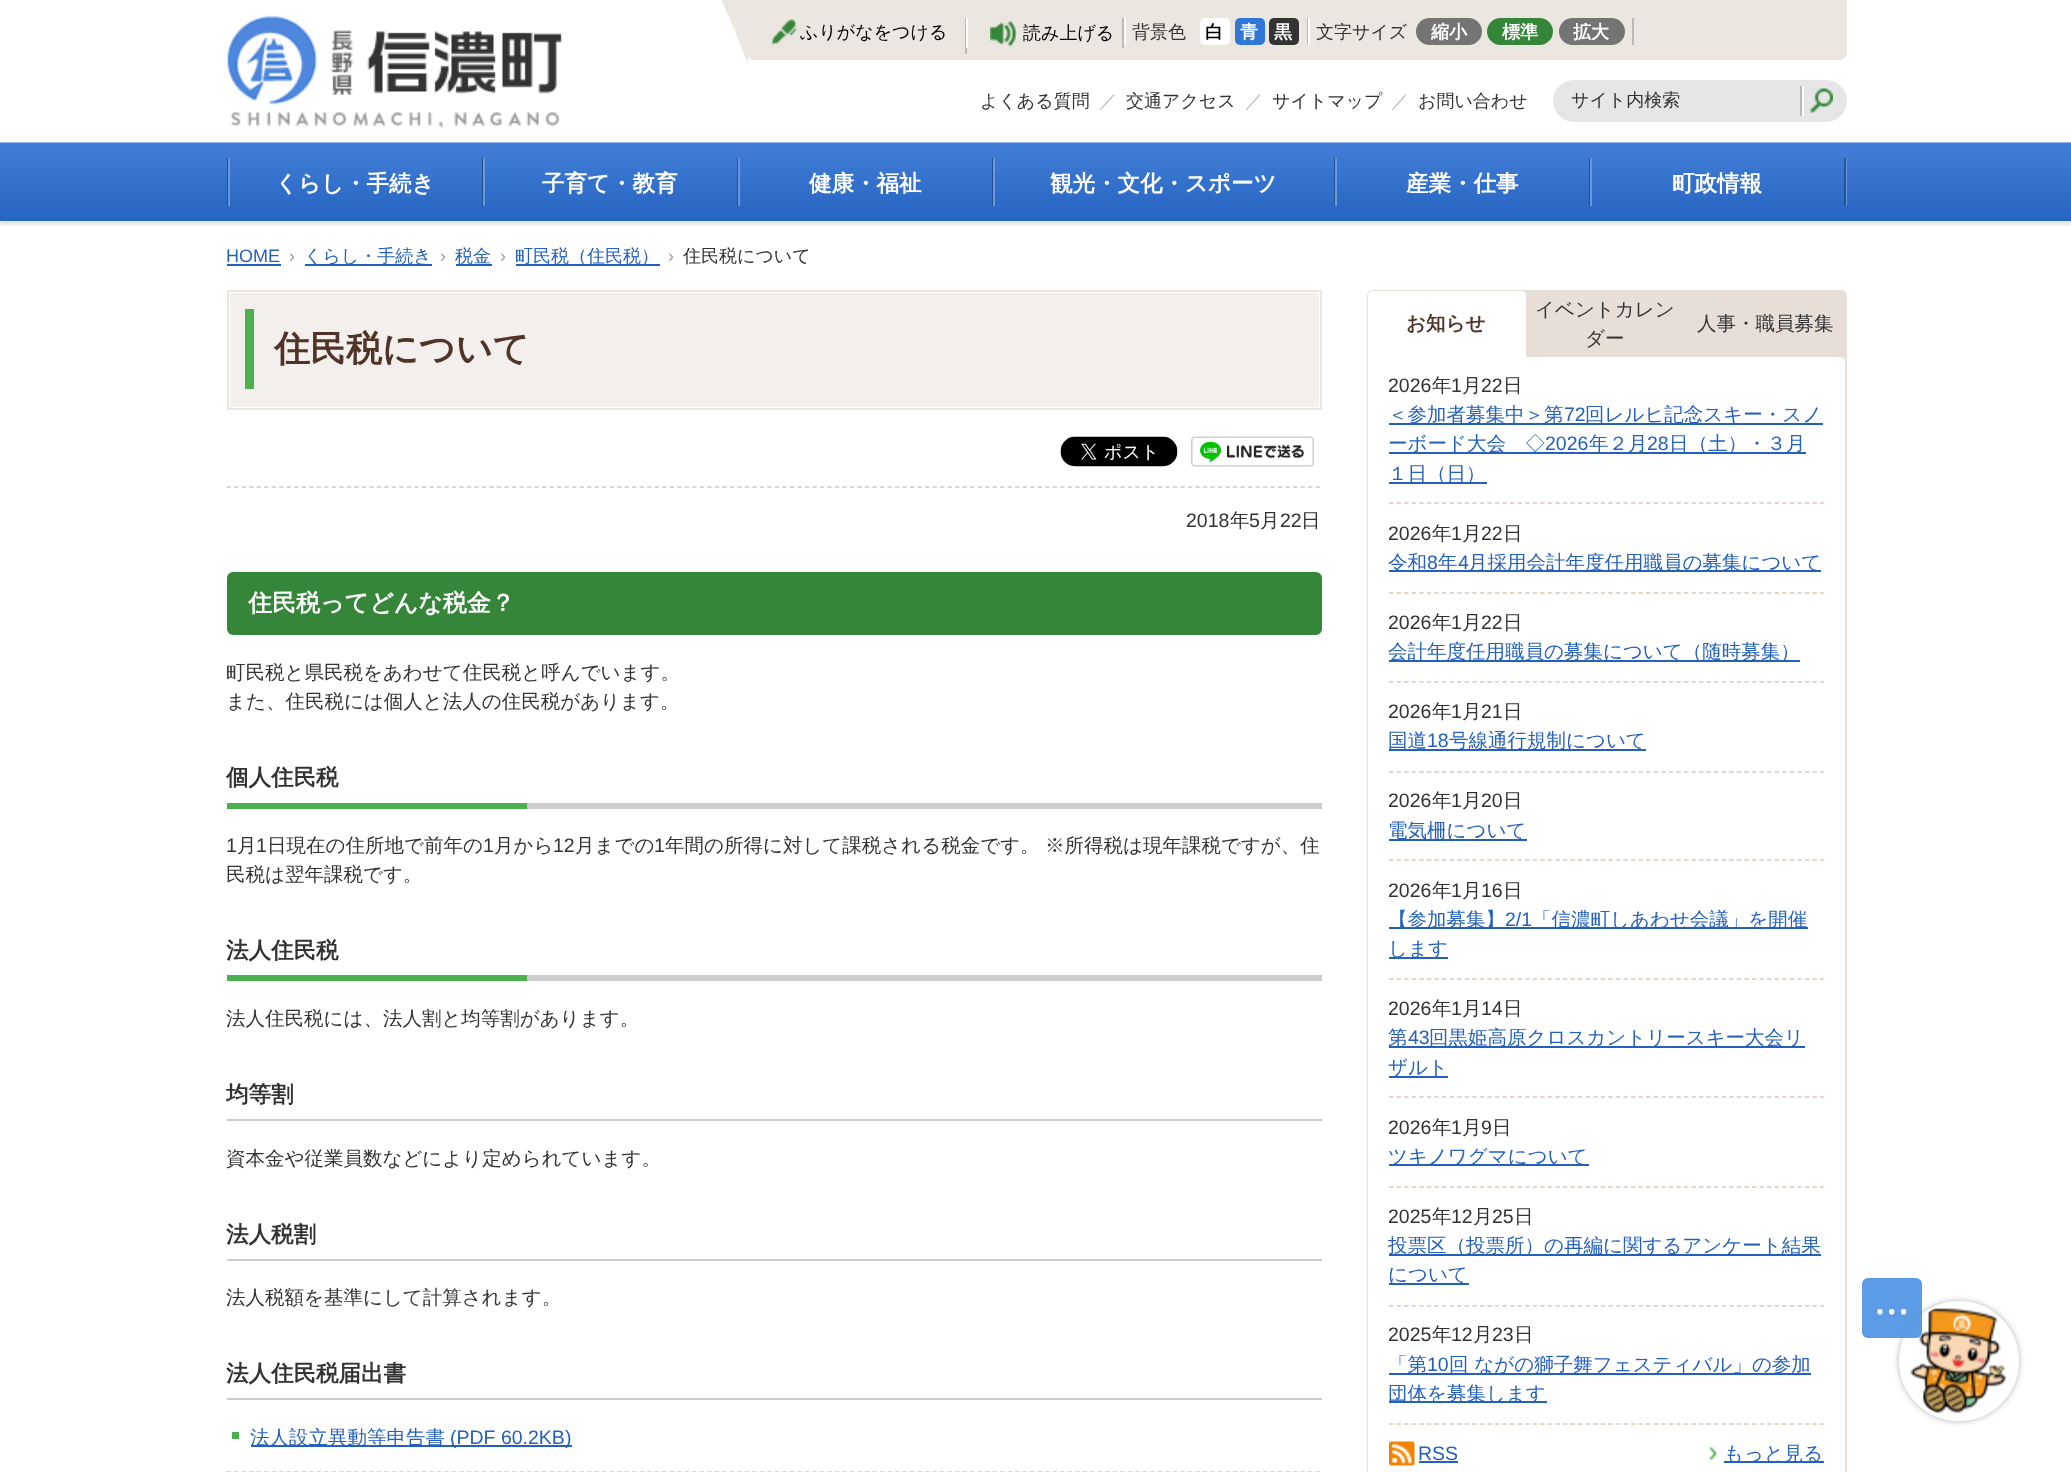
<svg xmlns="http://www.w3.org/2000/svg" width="2071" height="1472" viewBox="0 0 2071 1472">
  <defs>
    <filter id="blur1" x="-50%" y="-200%" width="200%" height="500%"><feGaussianBlur stdDeviation="1.5"/></filter>
    <filter id="blur2" x="-50%" y="-200%" width="200%" height="500%"><feGaussianBlur stdDeviation="3"/></filter>
  </defs>
  <rect width="100%" height="100%" fill="#ffffff"/>
  <image x="226" y="15" width="336" height="113" href="img1.png"/>
  <path d="M747 0H1847V52C1847 56.5 1843.5 60 1839 60H755C750.5 60 747 56.5 747 52Z" fill="#ece6e1"/>
  <path d="M747 0H1846V52C1846 57 1843 60 1839 60H754C750 60 747 57 747 52ZM748 0H1845V52C1845 56 1842 58 1839 58H754C751 58 748 56 748 52Z" fill="#ece6e1" fill-rule="evenodd"/>
  <path d="M721.5 0H748.5L735 31.5Z" fill="#ece6e1"/>
  <path d="M748 0V63L735 32Z" fill="#ece6e1"/>
  <rect x="965" y="18" width="2" height="36" fill="#bdb8b4"/>
  <image x="771" y="19" width="26" height="26" href="img2.png"/>
  <text x="800" y="38" font-family="WenQuanYi Zen Hei" font-size="18" font-weight="500" fill="#000000">ふりがなをつける</text>
  <rect x="1122" y="18" width="2" height="30" fill="#bdb8b4"/>
  <rect x="966" y="18" width="2" height="30" fill="#ffffff"/>
  <image x="990" y="21" width="27" height="26" href="img3.png"/>
  <text x="1023" y="39" font-family="WenQuanYi Zen Hei" font-size="18" font-weight="500" fill="#000000">読み上げる</text>
  <rect x="1307" y="18" width="1" height="27" fill="#bdb8b4"/>
  <rect x="1124" y="18" width="2" height="27" fill="#ffffff"/>
  <text x="1132" y="38" font-family="WenQuanYi Zen Hei" font-size="18" font-weight="500" fill="#333333">背景色</text>
  <rect x="1200" y="18" width="30" height="27" rx="5" fill="#ffffff"/>
  <text x="1205" y="38" font-family="WenQuanYi Zen Hei" font-size="18" font-weight="bold" fill="#000000">白</text>
  <rect x="1235" y="18" width="30" height="27" rx="5" fill="#3076d6"/>
  <text x="1240" y="38" font-family="WenQuanYi Zen Hei" font-size="18" font-weight="bold" fill="#ffffff">青</text>
  <rect x="1269" y="18" width="30" height="27" rx="5" fill="#333333"/>
  <text x="1274" y="38" font-family="WenQuanYi Zen Hei" font-size="18" font-weight="bold" fill="#ffffff">黒</text>
  <rect x="1632" y="18" width="2" height="27" fill="#bdb8b4"/>
  <rect x="1308" y="18" width="2" height="27" fill="#ffffff"/>
  <text x="1316" y="38" font-family="WenQuanYi Zen Hei" font-size="18" font-weight="500" fill="#333333">文字サイズ</text>
  <rect x="1416" y="18" width="66" height="27" rx="13.5" fill="#747474"/>
  <text x="1431" y="38" font-family="WenQuanYi Zen Hei" font-size="18" font-weight="bold" fill="#ffffff">縮小</text>
  <rect x="1487" y="18" width="66" height="27" rx="13.5" fill="#358639"/>
  <text x="1502" y="38" font-family="WenQuanYi Zen Hei" font-size="18" font-weight="bold" fill="#ffffff">標準</text>
  <rect x="1559" y="18" width="66" height="27" rx="13.5" fill="#747474"/>
  <text x="1573" y="38" font-family="WenQuanYi Zen Hei" font-size="18" font-weight="bold" fill="#ffffff">拡大</text>
  <text x="980" y="107" font-family="WenQuanYi Zen Hei" font-size="18" font-weight="500" fill="#333333">よくある質問</text>
  <text x="1099" y="107" font-family="WenQuanYi Zen Hei" font-size="18" font-weight="500" fill="#a9a9a9">／</text>
  <text x="1126" y="107" font-family="WenQuanYi Zen Hei" font-size="18" font-weight="500" fill="#333333">交通アクセス</text>
  <text x="1245" y="107" font-family="WenQuanYi Zen Hei" font-size="18" font-weight="500" fill="#a9a9a9">／</text>
  <text x="1272" y="107" font-family="WenQuanYi Zen Hei" font-size="18" font-weight="500" fill="#333333">サイトマップ</text>
  <text x="1391" y="107" font-family="WenQuanYi Zen Hei" font-size="18" font-weight="500" fill="#a9a9a9">／</text>
  <text x="1418" y="107" font-family="WenQuanYi Zen Hei" font-size="18" font-weight="500" fill="#333333">お問い合わせ</text>
  <rect x="1554" y="81" width="292" height="40" rx="20" fill="#e6e6e6" stroke="#e6e6e6" stroke-width="2"/>
  <rect x="1800" y="86" width="2" height="30" fill="#b8b8b8"/>
  <text x="1571" y="106" font-family="WenQuanYi Zen Hei" font-size="18" font-weight="500" fill="#333333">サイト内検索</text>
  <rect x="1802" y="86" width="2" height="30" fill="#ffffff"/>
  <image x="1810" y="88" width="23" height="25" href="img4.png"/>
  <rect x="0" y="147" width="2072" height="78" fill="#000000" fill-opacity="0.1" filter="url(#blur1)"/>
  <image x="0" y="142" width="2071" height="77" href="img5.png"/>
  <rect x="0" y="143" width="2071" height="1" fill="#427ed7"/>
  <rect x="0" y="219" width="2071" height="2" fill="#2765c2"/>
  <rect x="1846" y="158" width="1" height="48" fill="#6d98d8"/>
  <rect x="227" y="158" width="1" height="48" fill="#265190"/>
  <rect x="482" y="158" width="1" height="48" fill="#265190"/>
  <rect x="228" y="158" width="2" height="48" fill="#6d98d8"/>
  <text x="275" y="191" font-family="WenQuanYi Zen Hei" font-size="22.5" font-weight="bold" fill="#ffffff">くらし・手続き</text>
  <rect x="737" y="158" width="1" height="48" fill="#265190"/>
  <rect x="483" y="158" width="2" height="48" fill="#6d98d8"/>
  <text x="542" y="191" font-family="WenQuanYi Zen Hei" font-size="22.5" font-weight="bold" fill="#ffffff">子育て・教育</text>
  <rect x="992" y="158" width="1" height="48" fill="#265190"/>
  <rect x="738" y="158" width="2" height="48" fill="#6d98d8"/>
  <text x="809" y="191" font-family="WenQuanYi Zen Hei" font-size="22.5" font-weight="bold" fill="#ffffff">健康・福祉</text>
  <rect x="1334" y="158" width="1" height="48" fill="#265190"/>
  <rect x="993" y="158" width="2" height="48" fill="#6d98d8"/>
  <text x="1050" y="191" font-family="WenQuanYi Zen Hei" font-size="22.5" font-weight="bold" fill="#ffffff">観光・文化・スポーツ</text>
  <rect x="1589" y="158" width="1" height="48" fill="#265190"/>
  <rect x="1335" y="158" width="2" height="48" fill="#6d98d8"/>
  <text x="1406" y="191" font-family="WenQuanYi Zen Hei" font-size="22.5" font-weight="bold" fill="#ffffff">産業・仕事</text>
  <rect x="1844" y="158" width="2" height="48" fill="#265190"/>
  <rect x="1590" y="158" width="2" height="48" fill="#6d98d8"/>
  <text x="1672" y="191" font-family="WenQuanYi Zen Hei" font-size="22.5" font-weight="bold" fill="#ffffff">町政情報</text>
  <text x="226" y="262" font-family="Liberation Sans" font-size="18" fill="#2461bd">HOME</text>
  <rect x="227" y="264" width="54" height="2" fill="#2461bd"/>
  <text x="289" y="262" font-family="Liberation Sans" font-size="18" fill="#999999">›</text>
  <rect x="305" y="264" width="127" height="2" fill="#2461bd"/>
  <text x="304" y="262" font-family="WenQuanYi Zen Hei" font-size="18" font-weight="500" fill="#2461bd">くらし・手続き</text>
  <text x="440" y="262" font-family="Liberation Sans" font-size="18" fill="#999999">›</text>
  <rect x="456" y="264" width="36" height="2" fill="#2461bd"/>
  <text x="455" y="262" font-family="WenQuanYi Zen Hei" font-size="18" font-weight="500" fill="#2461bd">税金</text>
  <text x="500" y="262" font-family="Liberation Sans" font-size="18" fill="#999999">›</text>
  <rect x="516" y="264" width="144" height="2" fill="#2461bd"/>
  <text x="515" y="262" font-family="WenQuanYi Zen Hei" font-size="18" font-weight="500" fill="#2461bd">町民税（住民税）</text>
  <text x="668" y="262" font-family="Liberation Sans" font-size="18" fill="#999999">›</text>
  <text x="683" y="262" font-family="WenQuanYi Zen Hei" font-size="18" font-weight="500" fill="#333333">住民税について</text>
  <rect x="228" y="291" width="1093" height="118" fill="none" stroke="#ece6e1" stroke-width="2"/>
  <rect x="230" y="293" width="1089" height="114" fill="#f2efec"/>
  <rect x="245" y="309" width="9" height="80" fill="#4caf50"/>
  <text x="274" y="361" font-family="WenQuanYi Zen Hei" font-size="36" font-weight="bold" fill="#513328">住民税について</text>
  <path d="M226.5 487H1321.5" fill="none" stroke="#cccccc" stroke-width="1.5" stroke-dasharray="4.5 3.01"/>
  <image x="1060" y="436" width="118" height="31" href="img6.png"/>
  <image x="1191" y="436" width="123" height="31" href="img7.png"/>
  <text x="1186" y="527" font-family="Liberation Sans" font-size="19.5" fill="#333333">2018</text>
  <text x="1230" y="527" font-family="WenQuanYi Zen Hei" font-size="19.5" font-weight="500" fill="#333333">年</text>
  <text x="1249" y="527" font-family="Liberation Sans" font-size="19.5" fill="#333333">5</text>
  <text x="1260" y="527" font-family="WenQuanYi Zen Hei" font-size="19.5" font-weight="500" fill="#333333">月</text>
  <text x="1280" y="527" font-family="Liberation Sans" font-size="19.5" fill="#333333">22</text>
  <text x="1301" y="527" font-family="WenQuanYi Zen Hei" font-size="19.5" font-weight="500" fill="#333333">日</text>
  <rect x="228" y="573" width="1093" height="61" rx="5" fill="#358639" stroke="#358639" stroke-width="2"/>
  <text x="248" y="611" font-family="WenQuanYi Zen Hei" font-size="24" font-weight="bold" fill="#ffffff">住民税ってどんな税金？</text>
  <text x="226" y="679" font-family="WenQuanYi Zen Hei" font-size="19.5" font-weight="500" fill="#333333">町民税と県民税をあわせて住民税と呼んでいます。</text>
  <text x="226" y="708" font-family="WenQuanYi Zen Hei" font-size="19.5" font-weight="500" fill="#333333">また、住民税には個人と法人の住民税があります。</text>
  <rect x="527" y="803" width="795" height="6" fill="#cccccc"/>
  <text x="226" y="785" font-family="WenQuanYi Zen Hei" font-size="22.5" font-weight="bold" fill="#333333">個人住民税</text>
  <rect x="227" y="803" width="300" height="6" fill="#4caf50"/>
  <text x="226" y="852" font-family="Liberation Sans" font-size="19.5" fill="#333333">1</text>
  <text x="237" y="852" font-family="WenQuanYi Zen Hei" font-size="19.5" font-weight="500" fill="#333333">月</text>
  <text x="256" y="852" font-family="Liberation Sans" font-size="19.5" fill="#333333">1</text>
  <text x="267" y="852" font-family="WenQuanYi Zen Hei" font-size="19.5" font-weight="500" fill="#333333">日現在の住所地で前年の</text>
  <text x="483" y="852" font-family="Liberation Sans" font-size="19.5" fill="#333333">1</text>
  <text x="494" y="852" font-family="WenQuanYi Zen Hei" font-size="19.5" font-weight="500" fill="#333333">月から</text>
  <text x="553" y="852" font-family="Liberation Sans" font-size="19.5" fill="#333333">12</text>
  <text x="575" y="852" font-family="WenQuanYi Zen Hei" font-size="19.5" font-weight="500" fill="#333333">月までの</text>
  <text x="654" y="852" font-family="Liberation Sans" font-size="19.5" fill="#333333">1</text>
  <text x="665" y="852" font-family="WenQuanYi Zen Hei" font-size="19.5" font-weight="500" fill="#333333">年間の所得に対して課税される税金です。</text>
  <text x="1045" y="852" font-family="WenQuanYi Zen Hei" font-size="19.5" font-weight="500" fill="#333333">※所得税は現年課税ですが、住</text>
  <text x="226" y="881" font-family="WenQuanYi Zen Hei" font-size="19.5" font-weight="500" fill="#333333">民税は翌年課税です。</text>
  <rect x="527" y="975" width="795" height="6" fill="#cccccc"/>
  <text x="226" y="958" font-family="WenQuanYi Zen Hei" font-size="22.5" font-weight="bold" fill="#333333">法人住民税</text>
  <rect x="227" y="975" width="300" height="6" fill="#4caf50"/>
  <text x="226" y="1025" font-family="WenQuanYi Zen Hei" font-size="19.5" font-weight="500" fill="#333333">法人住民税には、法人割と均等割があります。</text>
  <rect x="227" y="1119" width="1095" height="2" fill="#cccccc"/>
  <text x="226" y="1102" font-family="WenQuanYi Zen Hei" font-size="22.5" font-weight="bold" fill="#333333">均等割</text>
  <text x="226" y="1165" font-family="WenQuanYi Zen Hei" font-size="19.5" font-weight="500" fill="#333333">資本金や従業員数などにより定められています。</text>
  <rect x="227" y="1259" width="1095" height="2" fill="#cccccc"/>
  <text x="226" y="1242" font-family="WenQuanYi Zen Hei" font-size="22.5" font-weight="bold" fill="#333333">法人税割</text>
  <text x="226" y="1304" font-family="WenQuanYi Zen Hei" font-size="19.5" font-weight="500" fill="#333333">法人税額を基準にして計算されます。</text>
  <rect x="227" y="1398" width="1095" height="2" fill="#cccccc"/>
  <text x="226" y="1381" font-family="WenQuanYi Zen Hei" font-size="22.5" font-weight="bold" fill="#333333">法人住民税届出書</text>
  <rect x="232" y="1432" width="7" height="7" fill="#4caf50"/>
  <rect x="251" y="1445" width="321" height="2" fill="#2461bd"/>
  <text x="250" y="1444" font-family="WenQuanYi Zen Hei" font-size="19.5" font-weight="500" fill="#2461bd">法人設立異動等申告書</text>
  <text x="450" y="1444" font-family="Liberation Sans" font-size="19.5" fill="#2461bd">(PDF 60.2KB)</text>
  <path d="M226.5 1472H1321.5" fill="none" stroke="#cccccc" stroke-width="1.5" stroke-dasharray="4.5 3.01"/>
  <rect x="1368" y="291" width="478" height="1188" rx="5" fill="#e7ded8" stroke="#e7ded8" stroke-width="2"/>
  <path d="M1373 291H1522C1525 291 1527 293 1527 296V357H1368V296C1368 293 1370 291 1373 291Z" fill="#ffffff"/>
  <path d="M1527 296C1527 293 1525 291 1522 291C1524 291 1526 293 1526 296V356L1527 357Z" fill="#e7ded8"/>
  <path d="M1527 357L1526 356H1368V357Z" fill="#ffffff"/>
  <text x="1406" y="330" font-family="WenQuanYi Zen Hei" font-size="19.5" font-weight="bold" fill="#513328">お知らせ</text>
  <text x="1535" y="316" font-family="WenQuanYi Zen Hei" font-size="19.5" font-weight="500" fill="#333333">イベントカレン</text>
  <text x="1585" y="345" font-family="WenQuanYi Zen Hei" font-size="19.5" font-weight="500" fill="#333333">ダー</text>
  <text x="1697" y="330" font-family="WenQuanYi Zen Hei" font-size="19.5" font-weight="500" fill="#333333">人事・職員募集</text>
  <path d="M1368 357H1840C1843 357 1845 359 1845 362V1472C1845 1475 1843 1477 1840 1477H1373C1370 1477 1368 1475 1368 1472Z" fill="#ffffff"/>
  <path d="M1389 503H1824" fill="none" stroke="#d9cbc1" stroke-width="1.5" stroke-dasharray="4.5 3.06"/>
  <text x="1388" y="392" font-family="Liberation Sans" font-size="19.5" fill="#333333">2026</text>
  <text x="1432" y="392" font-family="WenQuanYi Zen Hei" font-size="19.5" font-weight="500" fill="#333333">年</text>
  <text x="1451" y="392" font-family="Liberation Sans" font-size="19.5" fill="#333333">1</text>
  <text x="1462" y="392" font-family="WenQuanYi Zen Hei" font-size="19.5" font-weight="500" fill="#333333">月</text>
  <text x="1481" y="392" font-family="Liberation Sans" font-size="19.5" fill="#333333">22</text>
  <text x="1503" y="392" font-family="WenQuanYi Zen Hei" font-size="19.5" font-weight="500" fill="#333333">日</text>
  <rect x="1389" y="423" width="434" height="2" fill="#2461bd"/>
  <text x="1388" y="421" font-family="WenQuanYi Zen Hei" font-size="19.5" font-weight="500" fill="#2461bd">＜参加者募集中＞第</text>
  <text x="1564" y="421" font-family="Liberation Sans" font-size="19.5" fill="#2461bd">72</text>
  <text x="1585" y="421" font-family="WenQuanYi Zen Hei" font-size="19.5" font-weight="500" fill="#2461bd">回レルヒ記念スキー・スノ</text>
  <rect x="1389" y="452" width="417" height="2" fill="#2461bd"/>
  <text x="1388" y="450" font-family="WenQuanYi Zen Hei" font-size="19.5" font-weight="500" fill="#2461bd">ーボード大会　◇</text>
  <text x="1545" y="450" font-family="Liberation Sans" font-size="19.5" fill="#2461bd">2026</text>
  <text x="1589" y="450" font-family="WenQuanYi Zen Hei" font-size="19.5" font-weight="500" fill="#2461bd">年２月</text>
  <text x="1647" y="450" font-family="Liberation Sans" font-size="19.5" fill="#2461bd">28</text>
  <text x="1669" y="450" font-family="WenQuanYi Zen Hei" font-size="19.5" font-weight="500" fill="#2461bd">日（土）・３月</text>
  <rect x="1389" y="482" width="98" height="2" fill="#2461bd"/>
  <text x="1388" y="480" font-family="WenQuanYi Zen Hei" font-size="19.5" font-weight="500" fill="#2461bd">１日（日）</text>
  <path d="M1389 593H1824" fill="none" stroke="#d9cbc1" stroke-width="1.5" stroke-dasharray="4.5 3.06"/>
  <text x="1388" y="540" font-family="Liberation Sans" font-size="19.5" fill="#333333">2026</text>
  <text x="1432" y="540" font-family="WenQuanYi Zen Hei" font-size="19.5" font-weight="500" fill="#333333">年</text>
  <text x="1451" y="540" font-family="Liberation Sans" font-size="19.5" fill="#333333">1</text>
  <text x="1462" y="540" font-family="WenQuanYi Zen Hei" font-size="19.5" font-weight="500" fill="#333333">月</text>
  <text x="1481" y="540" font-family="Liberation Sans" font-size="19.5" fill="#333333">22</text>
  <text x="1503" y="540" font-family="WenQuanYi Zen Hei" font-size="19.5" font-weight="500" fill="#333333">日</text>
  <rect x="1389" y="570" width="432" height="2" fill="#2461bd"/>
  <text x="1388" y="569" font-family="WenQuanYi Zen Hei" font-size="19.5" font-weight="500" fill="#2461bd">令和</text>
  <text x="1427" y="569" font-family="Liberation Sans" font-size="19.5" fill="#2461bd">8</text>
  <text x="1438" y="569" font-family="WenQuanYi Zen Hei" font-size="19.5" font-weight="500" fill="#2461bd">年</text>
  <text x="1458" y="569" font-family="Liberation Sans" font-size="19.5" fill="#2461bd">4</text>
  <text x="1468" y="569" font-family="WenQuanYi Zen Hei" font-size="19.5" font-weight="500" fill="#2461bd">月採用会計年度任用職員の募集について</text>
  <path d="M1389 682H1824" fill="none" stroke="#d9cbc1" stroke-width="1.5" stroke-dasharray="4.5 3.06"/>
  <text x="1388" y="629" font-family="Liberation Sans" font-size="19.5" fill="#333333">2026</text>
  <text x="1432" y="629" font-family="WenQuanYi Zen Hei" font-size="19.5" font-weight="500" fill="#333333">年</text>
  <text x="1451" y="629" font-family="Liberation Sans" font-size="19.5" fill="#333333">1</text>
  <text x="1462" y="629" font-family="WenQuanYi Zen Hei" font-size="19.5" font-weight="500" fill="#333333">月</text>
  <text x="1481" y="629" font-family="Liberation Sans" font-size="19.5" fill="#333333">22</text>
  <text x="1503" y="629" font-family="WenQuanYi Zen Hei" font-size="19.5" font-weight="500" fill="#333333">日</text>
  <rect x="1389" y="660" width="411" height="2" fill="#2461bd"/>
  <text x="1388" y="658" font-family="WenQuanYi Zen Hei" font-size="19.5" font-weight="500" fill="#2461bd">会計年度任用職員の募集について（随時募集）</text>
  <path d="M1389 772H1824" fill="none" stroke="#d9cbc1" stroke-width="1.5" stroke-dasharray="4.5 3.06"/>
  <text x="1388" y="718" font-family="Liberation Sans" font-size="19.5" fill="#333333">2026</text>
  <text x="1432" y="718" font-family="WenQuanYi Zen Hei" font-size="19.5" font-weight="500" fill="#333333">年</text>
  <text x="1451" y="718" font-family="Liberation Sans" font-size="19.5" fill="#333333">1</text>
  <text x="1462" y="718" font-family="WenQuanYi Zen Hei" font-size="19.5" font-weight="500" fill="#333333">月</text>
  <text x="1481" y="718" font-family="Liberation Sans" font-size="19.5" fill="#333333">21</text>
  <text x="1503" y="718" font-family="WenQuanYi Zen Hei" font-size="19.5" font-weight="500" fill="#333333">日</text>
  <rect x="1389" y="749" width="257" height="2" fill="#2461bd"/>
  <text x="1388" y="747" font-family="WenQuanYi Zen Hei" font-size="19.5" font-weight="500" fill="#2461bd">国道</text>
  <text x="1427" y="747" font-family="Liberation Sans" font-size="19.5" fill="#2461bd">18</text>
  <text x="1449" y="747" font-family="WenQuanYi Zen Hei" font-size="19.5" font-weight="500" fill="#2461bd">号線通行規制について</text>
  <path d="M1389 860H1824" fill="none" stroke="#d9cbc1" stroke-width="1.5" stroke-dasharray="4.5 3.06"/>
  <text x="1388" y="807" font-family="Liberation Sans" font-size="19.5" fill="#333333">2026</text>
  <text x="1432" y="807" font-family="WenQuanYi Zen Hei" font-size="19.5" font-weight="500" fill="#333333">年</text>
  <text x="1451" y="807" font-family="Liberation Sans" font-size="19.5" fill="#333333">1</text>
  <text x="1462" y="807" font-family="WenQuanYi Zen Hei" font-size="19.5" font-weight="500" fill="#333333">月</text>
  <text x="1481" y="807" font-family="Liberation Sans" font-size="19.5" fill="#333333">20</text>
  <text x="1503" y="807" font-family="WenQuanYi Zen Hei" font-size="19.5" font-weight="500" fill="#333333">日</text>
  <rect x="1389" y="839" width="138" height="2" fill="#2461bd"/>
  <text x="1388" y="837" font-family="WenQuanYi Zen Hei" font-size="19.5" font-weight="500" fill="#2461bd">電気柵について</text>
  <path d="M1389 979H1824" fill="none" stroke="#d9cbc1" stroke-width="1.5" stroke-dasharray="4.5 3.06"/>
  <text x="1388" y="897" font-family="Liberation Sans" font-size="19.5" fill="#333333">2026</text>
  <text x="1432" y="897" font-family="WenQuanYi Zen Hei" font-size="19.5" font-weight="500" fill="#333333">年</text>
  <text x="1451" y="897" font-family="Liberation Sans" font-size="19.5" fill="#333333">1</text>
  <text x="1462" y="897" font-family="WenQuanYi Zen Hei" font-size="19.5" font-weight="500" fill="#333333">月</text>
  <text x="1481" y="897" font-family="Liberation Sans" font-size="19.5" fill="#333333">16</text>
  <text x="1503" y="897" font-family="WenQuanYi Zen Hei" font-size="19.5" font-weight="500" fill="#333333">日</text>
  <rect x="1389" y="927" width="419" height="2" fill="#2461bd"/>
  <text x="1388" y="926" font-family="WenQuanYi Zen Hei" font-size="19.5" font-weight="500" fill="#2461bd">【参加募集】</text>
  <text x="1505" y="926" font-family="Liberation Sans" font-size="19.5" fill="#2461bd">2/1</text>
  <text x="1532" y="926" font-family="WenQuanYi Zen Hei" font-size="19.5" font-weight="500" fill="#2461bd">「信濃町しあわせ会議」を開催</text>
  <rect x="1389" y="957" width="59" height="2" fill="#2461bd"/>
  <text x="1388" y="955" font-family="WenQuanYi Zen Hei" font-size="19.5" font-weight="500" fill="#2461bd">します</text>
  <path d="M1389 1097H1824" fill="none" stroke="#d9cbc1" stroke-width="1.5" stroke-dasharray="4.5 3.06"/>
  <text x="1388" y="1015" font-family="Liberation Sans" font-size="19.5" fill="#333333">2026</text>
  <text x="1432" y="1015" font-family="WenQuanYi Zen Hei" font-size="19.5" font-weight="500" fill="#333333">年</text>
  <text x="1451" y="1015" font-family="Liberation Sans" font-size="19.5" fill="#333333">1</text>
  <text x="1462" y="1015" font-family="WenQuanYi Zen Hei" font-size="19.5" font-weight="500" fill="#333333">月</text>
  <text x="1481" y="1015" font-family="Liberation Sans" font-size="19.5" fill="#333333">14</text>
  <text x="1503" y="1015" font-family="WenQuanYi Zen Hei" font-size="19.5" font-weight="500" fill="#333333">日</text>
  <rect x="1389" y="1046" width="416" height="2" fill="#2461bd"/>
  <text x="1388" y="1044" font-family="WenQuanYi Zen Hei" font-size="19.5" font-weight="500" fill="#2461bd">第</text>
  <text x="1408" y="1044" font-family="Liberation Sans" font-size="19.5" fill="#2461bd">43</text>
  <text x="1429" y="1044" font-family="WenQuanYi Zen Hei" font-size="19.5" font-weight="500" fill="#2461bd">回黒姫高原クロスカントリースキー大会リ</text>
  <rect x="1389" y="1076" width="59" height="2" fill="#2461bd"/>
  <text x="1388" y="1074" font-family="WenQuanYi Zen Hei" font-size="19.5" font-weight="500" fill="#2461bd">ザルト</text>
  <path d="M1389 1187H1824" fill="none" stroke="#d9cbc1" stroke-width="1.5" stroke-dasharray="4.5 3.06"/>
  <text x="1388" y="1134" font-family="Liberation Sans" font-size="19.5" fill="#333333">2026</text>
  <text x="1432" y="1134" font-family="WenQuanYi Zen Hei" font-size="19.5" font-weight="500" fill="#333333">年</text>
  <text x="1451" y="1134" font-family="Liberation Sans" font-size="19.5" fill="#333333">1</text>
  <text x="1462" y="1134" font-family="WenQuanYi Zen Hei" font-size="19.5" font-weight="500" fill="#333333">月</text>
  <text x="1481" y="1134" font-family="Liberation Sans" font-size="19.5" fill="#333333">9</text>
  <text x="1492" y="1134" font-family="WenQuanYi Zen Hei" font-size="19.5" font-weight="500" fill="#333333">日</text>
  <rect x="1389" y="1164" width="200" height="2" fill="#2461bd"/>
  <text x="1388" y="1163" font-family="WenQuanYi Zen Hei" font-size="19.5" font-weight="500" fill="#2461bd">ツキノワグマについて</text>
  <path d="M1389 1306H1824" fill="none" stroke="#d9cbc1" stroke-width="1.5" stroke-dasharray="4.5 3.06"/>
  <text x="1388" y="1223" font-family="Liberation Sans" font-size="19.5" fill="#333333">2025</text>
  <text x="1432" y="1223" font-family="WenQuanYi Zen Hei" font-size="19.5" font-weight="500" fill="#333333">年</text>
  <text x="1451" y="1223" font-family="Liberation Sans" font-size="19.5" fill="#333333">12</text>
  <text x="1473" y="1223" font-family="WenQuanYi Zen Hei" font-size="19.5" font-weight="500" fill="#333333">月</text>
  <text x="1492" y="1223" font-family="Liberation Sans" font-size="19.5" fill="#333333">25</text>
  <text x="1514" y="1223" font-family="WenQuanYi Zen Hei" font-size="19.5" font-weight="500" fill="#333333">日</text>
  <rect x="1389" y="1254" width="432" height="2" fill="#2461bd"/>
  <text x="1388" y="1252" font-family="WenQuanYi Zen Hei" font-size="19.5" font-weight="500" fill="#2461bd">投票区（投票所）の再編に関するアンケート結果</text>
  <rect x="1389" y="1283" width="80" height="2" fill="#2461bd"/>
  <text x="1388" y="1281" font-family="WenQuanYi Zen Hei" font-size="19.5" font-weight="500" fill="#2461bd">について</text>
  <text x="1388" y="1341" font-family="Liberation Sans" font-size="19.5" fill="#333333">2025</text>
  <text x="1432" y="1341" font-family="WenQuanYi Zen Hei" font-size="19.5" font-weight="500" fill="#333333">年</text>
  <text x="1451" y="1341" font-family="Liberation Sans" font-size="19.5" fill="#333333">12</text>
  <text x="1473" y="1341" font-family="WenQuanYi Zen Hei" font-size="19.5" font-weight="500" fill="#333333">月</text>
  <text x="1492" y="1341" font-family="Liberation Sans" font-size="19.5" fill="#333333">23</text>
  <text x="1514" y="1341" font-family="WenQuanYi Zen Hei" font-size="19.5" font-weight="500" fill="#333333">日</text>
  <rect x="1389" y="1373" width="422" height="2" fill="#2461bd"/>
  <text x="1388" y="1371" font-family="WenQuanYi Zen Hei" font-size="19.5" font-weight="500" fill="#2461bd">「第</text>
  <text x="1427" y="1371" font-family="Liberation Sans" font-size="19.5" fill="#2461bd">10</text>
  <text x="1449" y="1371" font-family="WenQuanYi Zen Hei" font-size="19.5" font-weight="500" fill="#2461bd">回 ながの獅子舞フェスティバル」の参加</text>
  <rect x="1389" y="1401" width="158" height="2" fill="#2461bd"/>
  <text x="1388" y="1400" font-family="WenQuanYi Zen Hei" font-size="19.5" font-weight="500" fill="#2461bd">団体を募集します</text>
  <path d="M1389 1424H1824" fill="none" stroke="#d9cbc1" stroke-width="1.5" stroke-dasharray="4.5 3.06"/>
  <image x="1389" y="1441" width="26" height="25" href="img8.png"/>
  <text x="1418" y="1460" font-family="Liberation Sans" font-size="19.5" fill="#2461bd">RSS</text>
  <rect x="1419" y="1461" width="39" height="2" fill="#2461bd"/>
  <image x="1708" y="1447" width="10" height="13" href="img9.png"/>
  <rect x="1724" y="1461" width="100" height="2" fill="#2461bd"/>
  <text x="1724" y="1460" font-family="WenQuanYi Zen Hei" font-size="19.5" font-weight="500" fill="#2461bd">もっと見る</text>
  <rect x="1899" y="1301" width="120" height="120" rx="60" fill="#000000" fill-opacity="0.3" filter="url(#blur2)"/>
  <circle cx="1959" cy="1361" r="58.5" fill="#ffffff" stroke="#ffffff" stroke-width="3"/>
  <image x="1910" y="1308" width="96" height="106" href="img10.png"/>
  <rect x="1862" y="1278" width="60" height="60" rx="6" fill="#4a90e2" fill-opacity="0.9"/>
  <text x="1874" y="1314" font-family="Open Sans" font-size="45" fill="#ffffff">...</text>
</svg>
